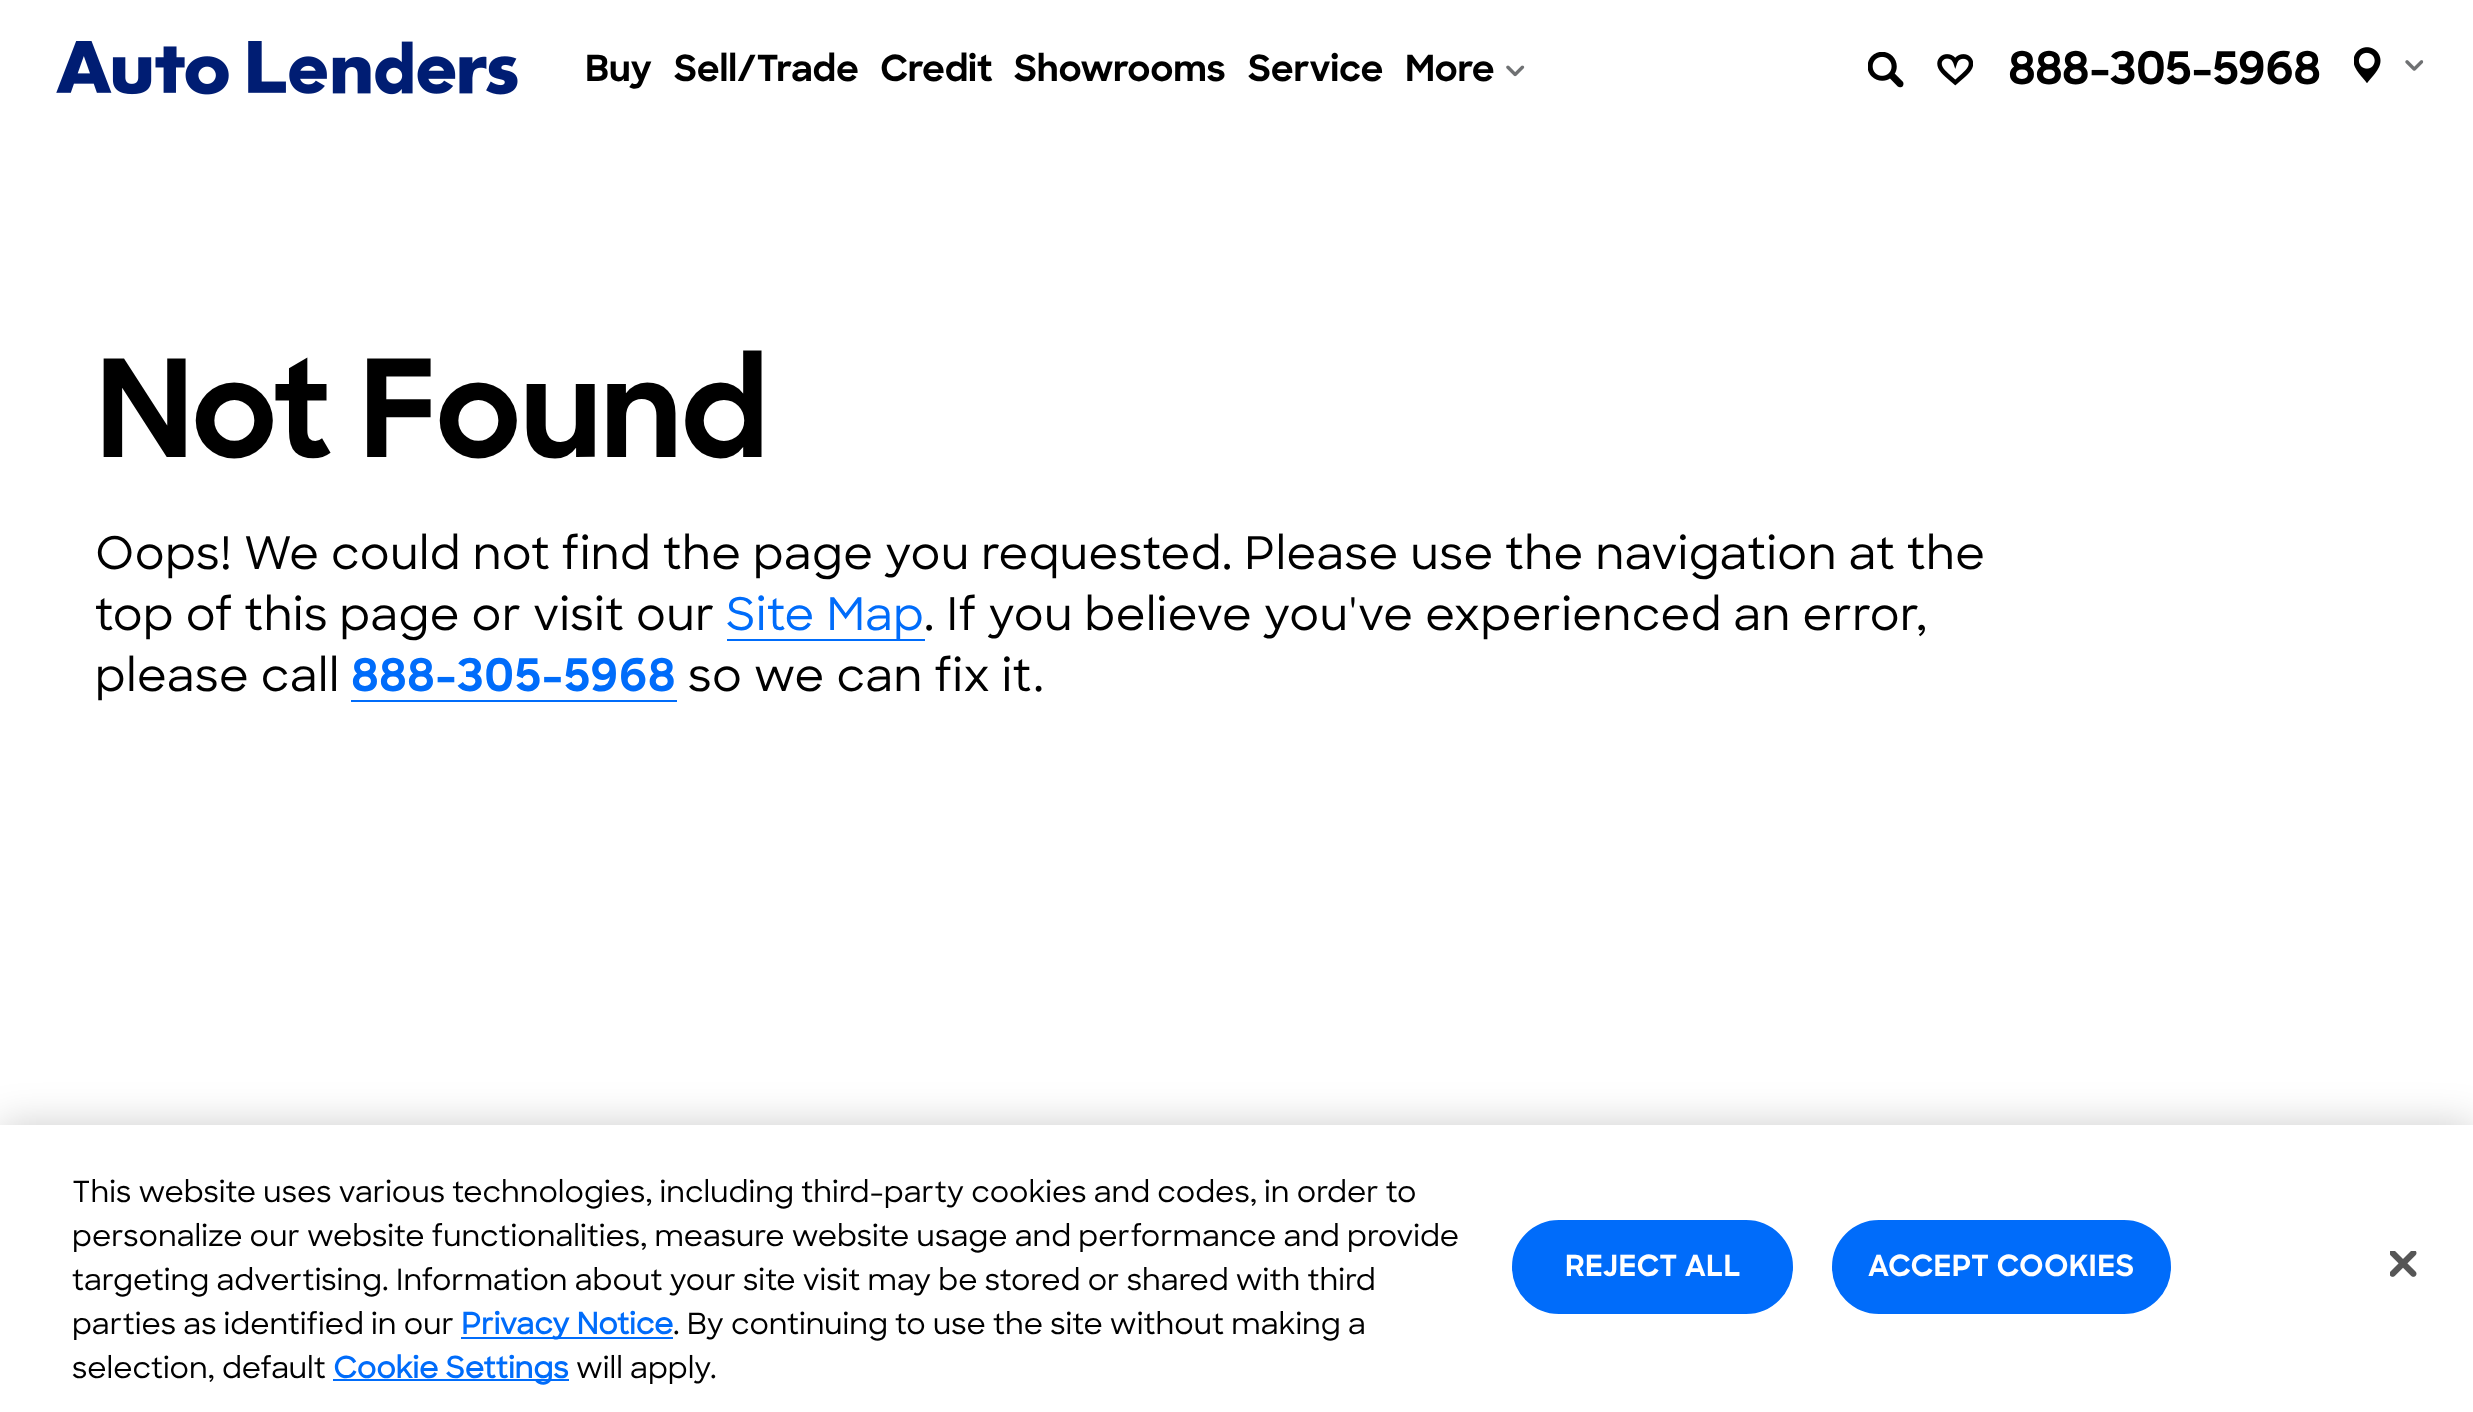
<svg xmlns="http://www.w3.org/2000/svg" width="2473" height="1412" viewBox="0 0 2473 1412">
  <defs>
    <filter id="blur1" x="-50%" y="-200%" width="200%" height="500%"><feGaussianBlur stdDeviation="20"/></filter>
  </defs>
  <rect width="100%" height="100%" fill="#ffffff"/>
  <image x="56" y="41" width="462" height="54" href="img1.png"/>
  <text x="585" y="81" font-family="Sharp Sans" font-size="36" font-weight="bold" letter-spacing="-0.25" fill="#000000">Buy</text>
  <text x="674" y="81" font-family="Sharp Sans" font-size="36" font-weight="bold" letter-spacing="-0.25" fill="#000000">Sell/Trade</text>
  <text x="880" y="81" font-family="Sharp Sans" font-size="36" font-weight="bold" letter-spacing="-0.25" fill="#000000">Credit</text>
  <text x="1014" y="81" font-family="Sharp Sans" font-size="36" font-weight="bold" letter-spacing="-0.25" fill="#000000">Showrooms</text>
  <text x="1248" y="81" font-family="Sharp Sans" font-size="36" font-weight="bold" letter-spacing="-0.25" fill="#000000">Service</text>
  <text x="1405" y="81" font-family="Sharp Sans" font-size="36" font-weight="bold" letter-spacing="-0.25" fill="#000000">More</text>
  <image x="1506" y="65" width="19" height="12" href="img2.png"/>
  <image x="1868" y="52" width="36" height="36" href="img3.png"/>
  <image x="1937" y="54" width="36" height="32" href="img4.png"/>
  <text x="2008" y="84" font-family="Sharp Sans" font-size="45" font-weight="bold" letter-spacing="-0.5" fill="#000000">888-305-5968</text>
  <image x="2354" y="47" width="27" height="36" href="img5.png"/>
  <image x="2405" y="60" width="19" height="11" href="img6.png"/>
  <text x="95" y="457" font-family="Sharp Sans" font-size="135" font-weight="bold" letter-spacing="-2.25" fill="#000000">Not Found</text>
  <text x="95" y="569" font-family="Sharp Sans" font-size="45" font-weight="500" letter-spacing="0.55" fill="#000000">Oops! We could not find the page you requested. Please use the navigation at the</text>
  <text x="95" y="630" font-family="Sharp Sans" font-size="45" font-weight="500" letter-spacing="0.55" fill="#000000">top of this page or visit our</text>
  <rect x="727" y="639" width="198" height="2" fill="#006cfa"/>
  <text x="726" y="630" font-family="Sharp Sans" font-size="45" font-weight="500" letter-spacing="0.55" fill="#006cfa">Site Map</text>
  <text x="924" y="630" font-family="Sharp Sans" font-size="45" font-weight="500" letter-spacing="0.55" fill="#000000">. If you believe you've experienced an error,</text>
  <text x="95" y="691" font-family="Sharp Sans" font-size="45" font-weight="500" letter-spacing="0.55" fill="#000000">please call</text>
  <text x="351" y="691" font-family="Sharp Sans" font-size="45" font-weight="bold" letter-spacing="0.55" fill="#006cfa">888-305-5968</text>
  <rect x="351" y="700" width="326" height="2" fill="#006cfa"/>
  <text x="688" y="691" font-family="Sharp Sans" font-size="45" font-weight="500" letter-spacing="0.55" fill="#000000">so we can fix it.</text>
  <rect x="0" y="1125" width="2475" height="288" fill="#000000" fill-opacity="0.2" filter="url(#blur1)"/>
  <rect x="0" y="1125" width="2473" height="287" fill="#ffffff"/>
  <text x="72" y="1202" font-family="Sharp Sans" font-size="29.25" font-weight="500" fill="#000000">This website uses various technologies, including third-party cookies and codes, in order to</text>
  <text x="72" y="1246" font-family="Sharp Sans" font-size="29.25" font-weight="500" fill="#000000">personalize our website functionalities, measure website usage and performance and provide</text>
  <text x="72" y="1290" font-family="Sharp Sans" font-size="29.25" font-weight="500" fill="#000000">targeting advertising. Information about your site visit may be stored or shared with third</text>
  <text x="72" y="1334" font-family="Sharp Sans" font-size="29.25" font-weight="500" fill="#000000">parties as identified in our</text>
  <rect x="461" y="1337" width="212" height="2" fill="#006cfa"/>
  <text x="461" y="1334" font-family="'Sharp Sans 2'" font-size="29.25" font-weight="bold" fill="#006cfa">Privacy Notice</text>
  <text x="673" y="1334" font-family="Sharp Sans" font-size="29.25" font-weight="500" fill="#000000">. By continuing to use the site without making a</text>
  <text x="72" y="1378" font-family="Sharp Sans" font-size="29.25" font-weight="500" fill="#000000">selection, default</text>
  <rect x="333" y="1379" width="236" height="2" fill="#006cfa"/>
  <text x="333" y="1378" font-family="'Sharp Sans 2'" font-size="29.25" font-weight="bold" fill="#006cfa">Cookie Settings</text>
  <text x="576" y="1378" font-family="Sharp Sans" font-size="29.25" font-weight="500" fill="#000000">will apply.</text>
  <rect x="1513" y="1221" width="279" height="92" rx="46" fill="#006cfa" stroke="#006cfa" stroke-width="2"/>
  <text x="1565" y="1276" font-family="Sharp Sans" font-size="29.25" font-weight="bold" letter-spacing="0.25" fill="#ffffff">REJECT ALL</text>
  <rect x="1833" y="1221" width="337" height="92" rx="46" fill="#006cfa" stroke="#006cfa" stroke-width="2"/>
  <text x="1868" y="1276" font-family="Sharp Sans" font-size="29.25" font-weight="bold" letter-spacing="0.25" fill="#ffffff">ACCEPT COOKIES</text>
  <image x="2390" y="1251" width="27" height="26" href="img7.png"/>
</svg>
